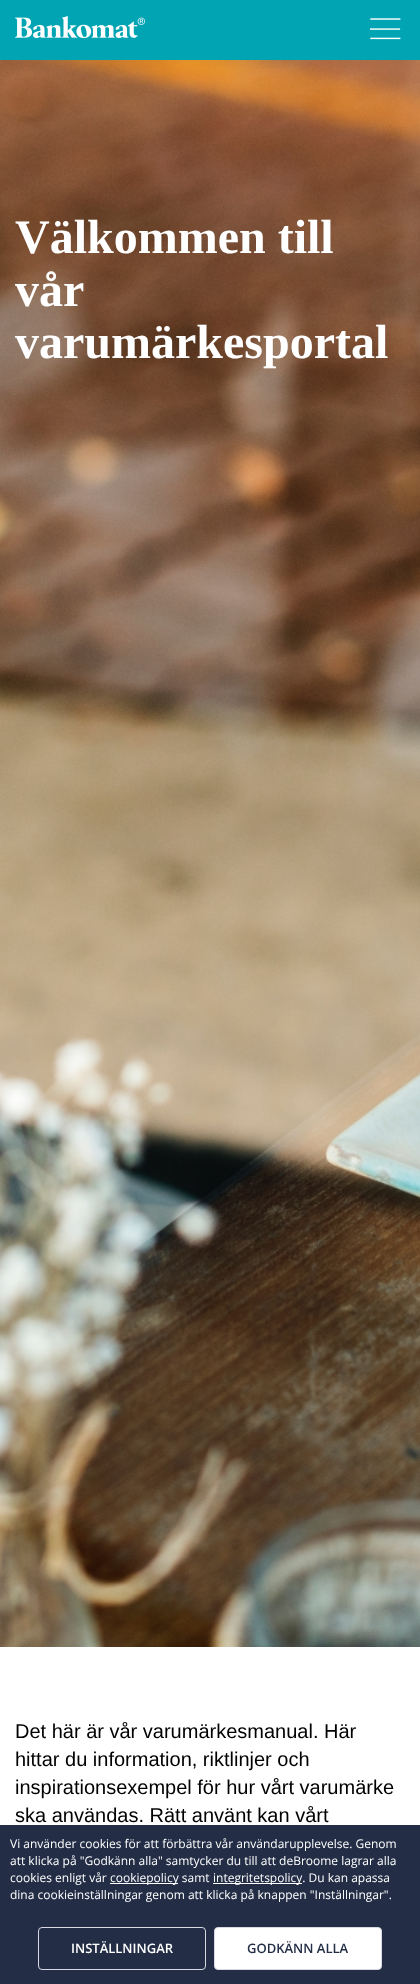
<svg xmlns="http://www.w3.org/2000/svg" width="420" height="1984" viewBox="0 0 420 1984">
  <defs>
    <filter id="blur1" x="-50%" y="-200%" width="200%" height="500%"><feGaussianBlur stdDeviation="10"/></filter>
  </defs>
  <rect width="100%" height="100%" fill="#ffffff"/>
  <image x="0" y="60" width="420" height="1587" href="img3.png"/>
  <rect x="0" y="0" width="420" height="60" fill="#000000" fill-opacity="0.1" filter="url(#blur1)"/>
  <rect x="0" y="0" width="420" height="60" fill="#00a4b3"/>
  <image x="15" y="16" width="130" height="22" href="img1.png"/>
  <image x="370" y="18" width="31" height="22" href="img2.png"/>
  <text x="15" y="253" font-family="Liberation Serif" font-size="48" font-weight="bold" fill="#ffffff">Välkommen till</text>
  <text x="15" y="306" font-family="Liberation Serif" font-size="48" font-weight="bold" fill="#ffffff">vår</text>
  <text x="15" y="358" font-family="Liberation Serif" font-size="48" font-weight="bold" fill="#ffffff">varumärkesportal</text>
  <text x="15" y="1738" font-family="Liberation Sans" font-size="20" fill="#000000">Det här är vår varumärkesmanual. Här</text>
  <text x="15" y="1766" font-family="Liberation Sans" font-size="20" fill="#000000">hittar du information, riktlinjer och</text>
  <text x="15" y="1794" font-family="Liberation Sans" font-size="20" fill="#000000">inspirationsexempel för hur vårt varumärke</text>
  <text x="15" y="1822" font-family="Liberation Sans" font-size="20" fill="#000000">ska användas. Rätt använt kan vårt</text>
  <rect x="0" y="1825" width="420" height="159" fill="#232e46"/>
  <text x="10" y="1848" font-family="Open Sans" font-size="12" fill="#ffffff">Vi använder cookies för att förbättra vår användarupplevelse. Genom</text>
  <text x="10" y="1865" font-family="Open Sans" font-size="12" fill="#ffffff">att klicka på "Godkänn alla" samtycker du till att deBroome lagrar alla</text>
  <text x="10" y="1882" font-family="Open Sans" font-size="12" fill="#ffffff">cookies enligt vår</text>
  <rect x="110" y="1883" width="68" height="1" fill="#ffffff"/>
  <text x="110" y="1882" font-family="Open Sans" font-size="12" fill="#ffffff">cookiepolicy samt</text>
  <rect x="213" y="1883" width="89" height="1" fill="#ffffff"/>
  <text x="213" y="1882" font-family="Open Sans" font-size="12" fill="#ffffff">integritetspolicy. Du kan apassa</text>
  <text x="10" y="1899" font-family="Open Sans" font-size="12" fill="#ffffff">dina cookieinställningar genom att klicka på knappen "Inställningar".</text>
  <rect x="38.5" y="1927.5" width="167" height="42" rx="3.5" fill="none" stroke="#d7dae2"/>
  <text x="71" y="1953" font-family="Open Sans" font-size="13" font-weight="600" fill="#ffffff">INSTÄLLNINGAR</text>
  <rect x="214.5" y="1927.5" width="167" height="42" rx="3.5" fill="#ffffff" stroke="#d7dae2"/>
  <text x="247" y="1953" font-family="Open Sans" font-size="13" font-weight="600" fill="#232e46">GODKÄNN ALLA</text>
</svg>
